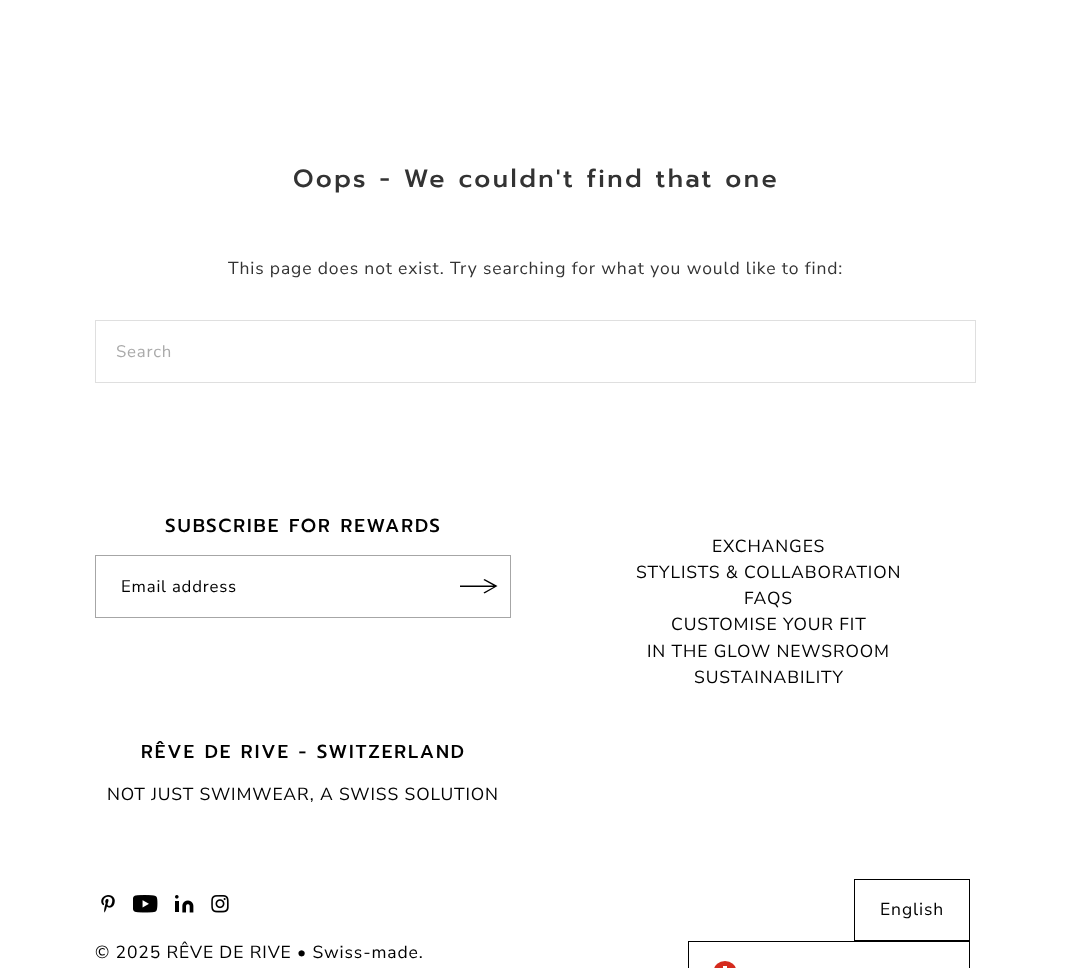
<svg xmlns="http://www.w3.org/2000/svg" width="1071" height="968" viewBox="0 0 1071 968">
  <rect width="100%" height="100%" fill="#ffffff"/>
  <text x="293" y="187" font-family="Prompt" font-size="25" font-weight="500" letter-spacing="2.5" fill="#333333">Oops - We couldn't find that one</text>
  <text x="228" y="274" font-family="Nunito Sans" font-size="17.5" letter-spacing="0.88" fill="#333333">This page does not exist. Try searching for what you would like to find:</text>
  <rect x="95.5" y="320.5" width="880" height="62" fill="none" stroke="#dfdfdf"/>
  <text x="116" y="357" font-family="Nunito Sans" font-size="16.75" letter-spacing="0.8" fill="#aaaaaa">Search</text>
  <text x="165" y="532" font-family="Prompt" font-size="18.75" font-weight="500" letter-spacing="1.9" fill="#000000">SUBSCRIBE FOR REWARDS</text>
  <rect x="95.5" y="555.5" width="415" height="62" fill="none" stroke="#a6a6a6"/>
  <text x="121" y="592" font-family="Nunito Sans" font-size="16.75" letter-spacing="0.8" fill="#000000">Email address</text>
  <path d="M484.5 579L497.5 586L484.5 593.5L483.5 592.5L493.5 587H460V585.5H493.5L483.5 580Z" fill="#000000"/>
  <text x="712" y="552" font-family="Nunito Sans" font-size="17.5" letter-spacing="0.88" fill="#000000">EXCHANGES</text>
  <text x="636" y="578" font-family="Nunito Sans" font-size="17.5" letter-spacing="0.88" fill="#000000">STYLISTS &amp; COLLABORATION</text>
  <text x="744" y="604" font-family="Nunito Sans" font-size="17.5" letter-spacing="0.88" fill="#000000">FAQS</text>
  <text x="671" y="630" font-family="Nunito Sans" font-size="17.5" letter-spacing="0.88" fill="#000000">CUSTOMISE YOUR FIT</text>
  <text x="647" y="657" font-family="Nunito Sans" font-size="17.5" letter-spacing="0.88" fill="#000000">IN THE GLOW NEWSROOM</text>
  <text x="694" y="683" font-family="Nunito Sans" font-size="17.5" letter-spacing="0.88" fill="#000000">SUSTAINABILITY</text>
  <text x="141" y="758" font-family="Prompt" font-size="18.75" font-weight="500" letter-spacing="1.9" fill="#000000">RÊVE DE RIVE - SWITZERLAND</text>
  <text x="107" y="800" font-family="Nunito Sans" font-size="17.5" letter-spacing="0.88" fill="#000000">NOT JUST SWIMWEAR, A SWISS SOLUTION</text>
  <rect x="854.5" y="879.5" width="115" height="61" fill="none" stroke="#000000"/>
  <text x="880" y="915" font-family="Nunito Sans" font-size="17.5" letter-spacing="0.88" fill="#000000">English</text>
  <rect x="688.5" y="941.5" width="281" height="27" fill="none" stroke="#000000"/>
  <rect x="714" y="961" width="22" height="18" rx="11" fill="#d52b1e"/>
  <rect x="723" y="966" width="4" height="2" fill="#ffffff"/>
  <image x="101" y="895" width="14" height="18" href="img1.png"/>
  <image x="133" y="895" width="25" height="18" href="img2.png"/>
  <image x="175" y="895" width="19" height="18" href="img3.png"/>
  <image x="211" y="895" width="18" height="18" href="img4.png"/>
  <text x="95" y="958" font-family="Nunito Sans" font-size="17.5" letter-spacing="0.88" fill="#000000">© 2025 RÊVE DE RIVE • Swiss-made.</text>
</svg>
